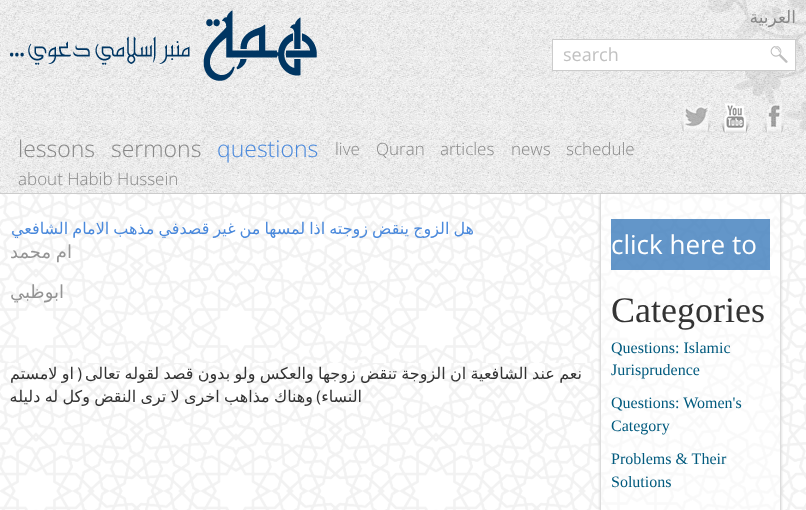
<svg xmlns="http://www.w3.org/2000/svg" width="806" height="510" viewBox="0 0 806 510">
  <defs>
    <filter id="blur1" x="-50%" y="-200%" width="200%" height="500%"><feGaussianBlur stdDeviation="1.5"/></filter>
  </defs>
  <rect width="100%" height="100%" fill="#ffffff"/>
  <image x="0" y="194" width="806" height="316" href="img1.png"/>
  <image x="0" y="0" width="806" height="193" href="img2.png"/>
  <rect x="0" y="193" width="806" height="1" fill="#cccccc"/>
  <image x="708" y="0" width="98" height="131" href="img3.png"/>
  <text x="796" y="23" font-family="DejaVu Sans" font-size="17" direction="rtl" fill="#888888">العربية</text>
  <rect x="552.5" y="39.5" width="243" height="31" fill="#ffffff" stroke="#cccccc"/>
  <image x="770" y="46" width="18" height="17" href="img4.png"/>
  <text x="563" y="61" font-family="Open Sans" font-size="18" fill="#c1c1c1">search</text>
  <image x="10" y="10" width="307" height="71" href="img5.png"/>
  <image x="764" y="103" width="20" height="30" href="img6.png"/>
  <image x="721" y="103" width="29" height="30" href="img7.png"/>
  <image x="680" y="104" width="33" height="28" href="img8.png"/>
  <text x="566" y="155" font-family="Open Sans" font-size="17" font-weight="300" fill="#888888">schedule</text>
  <text x="511" y="155" font-family="Open Sans" font-size="17" font-weight="300" fill="#888888">news</text>
  <text x="440" y="155" font-family="Open Sans" font-size="17" font-weight="300" fill="#888888">articles</text>
  <text x="376" y="155" font-family="Open Sans" font-size="17" font-weight="300" fill="#888888">Quran</text>
  <text x="335" y="155" font-family="Open Sans" font-size="17" font-weight="300" fill="#888888">live</text>
  <text x="217" y="157" font-family="Open Sans" font-size="23" font-weight="300" fill="#4a89dc">questions</text>
  <text x="111" y="157" font-family="Open Sans" font-size="23" font-weight="300" fill="#888888">sermons</text>
  <text x="18" y="157" font-family="Open Sans" font-size="23" font-weight="300" fill="#888888">lessons</text>
  <text x="18" y="185" font-family="Open Sans" font-size="17" font-weight="300" fill="#888888">about Habib Hussein</text>
  <rect x="600" y="194" width="181" height="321" fill="#cccccc" filter="url(#blur1)"/>
  <image x="601" y="194" width="179" height="316" href="img9.png"/>
  <rect x="780" y="194" width="1" height="316" fill="#dcdcdc"/>
  <rect x="600" y="194" width="1" height="316" fill="#dcdcdc"/>
  <rect x="611" y="219" width="159" height="51" fill="#0053a7" fill-opacity="0.61"/>
  <text x="611" y="254" font-family="Open Sans" font-size="26" fill="#ffffff">click here to</text>
  <text x="611" y="322" font-family="Liberation Serif" font-size="36" fill="#333333">Categories</text>
  <text x="611" y="353" font-family="Liberation Serif" font-size="16" fill="#005a7e">Questions: Islamic</text>
  <text x="611" y="375" font-family="Liberation Serif" font-size="16" fill="#005a7e">Jurisprudence</text>
  <text x="611" y="408" font-family="Liberation Serif" font-size="16" fill="#005a7e">Questions: Women's</text>
  <text x="611" y="431" font-family="Liberation Serif" font-size="16" fill="#005a7e">Category</text>
  <text x="611" y="464" font-family="Liberation Serif" font-size="16" fill="#005a7e">Problems &amp; Their</text>
  <text x="611" y="487" font-family="Liberation Serif" font-size="16" fill="#005a7e">Solutions</text>
  <text x="474" y="234" word-spacing="-1" font-family="DejaVu Sans" font-size="16" direction="rtl" fill="#4a89dc">هل الزوج ينقض زوجته اذا لمسها من غير قصدفي مذهب الامام الشافعي</text>
  <text x="72" y="258" word-spacing="-1" font-family="DejaVu Sans" font-size="18" direction="rtl" fill="#949494">ام محمد</text>
  <text x="64" y="298" font-family="DejaVu Sans" font-size="18" direction="rtl" fill="#949494">ابوظبي</text>
  <text x="582" y="379" word-spacing="-0.75" font-family="DejaVu Sans" font-size="16" direction="rtl" fill="#333333">نعم عند الشافعية ان الزوجة تنقض زوجها والعكس ولو بدون قصد لقوله تعالى</text>
  <text x="82" y="379" font-family="Open Sans" font-size="16" direction="rtl" fill="#333333">(</text>
  <text x="74" y="379" word-spacing="-0.75" font-family="DejaVu Sans" font-size="16" direction="rtl" fill="#333333">او لامستم</text>
  <text x="362" y="402" font-family="DejaVu Sans" font-size="16" direction="rtl" fill="#333333">النساء</text>
  <text x="313" y="402" word-spacing="-0.75" font-family="DejaVu Sans" font-size="16" direction="rtl" fill="#333333">وهناك مذاهب اخرى لا ترى النقض وكل له دليله</text>
  <text x="321" y="402" font-family="Open Sans" font-size="16" direction="rtl" fill="#333333">)</text>
</svg>
